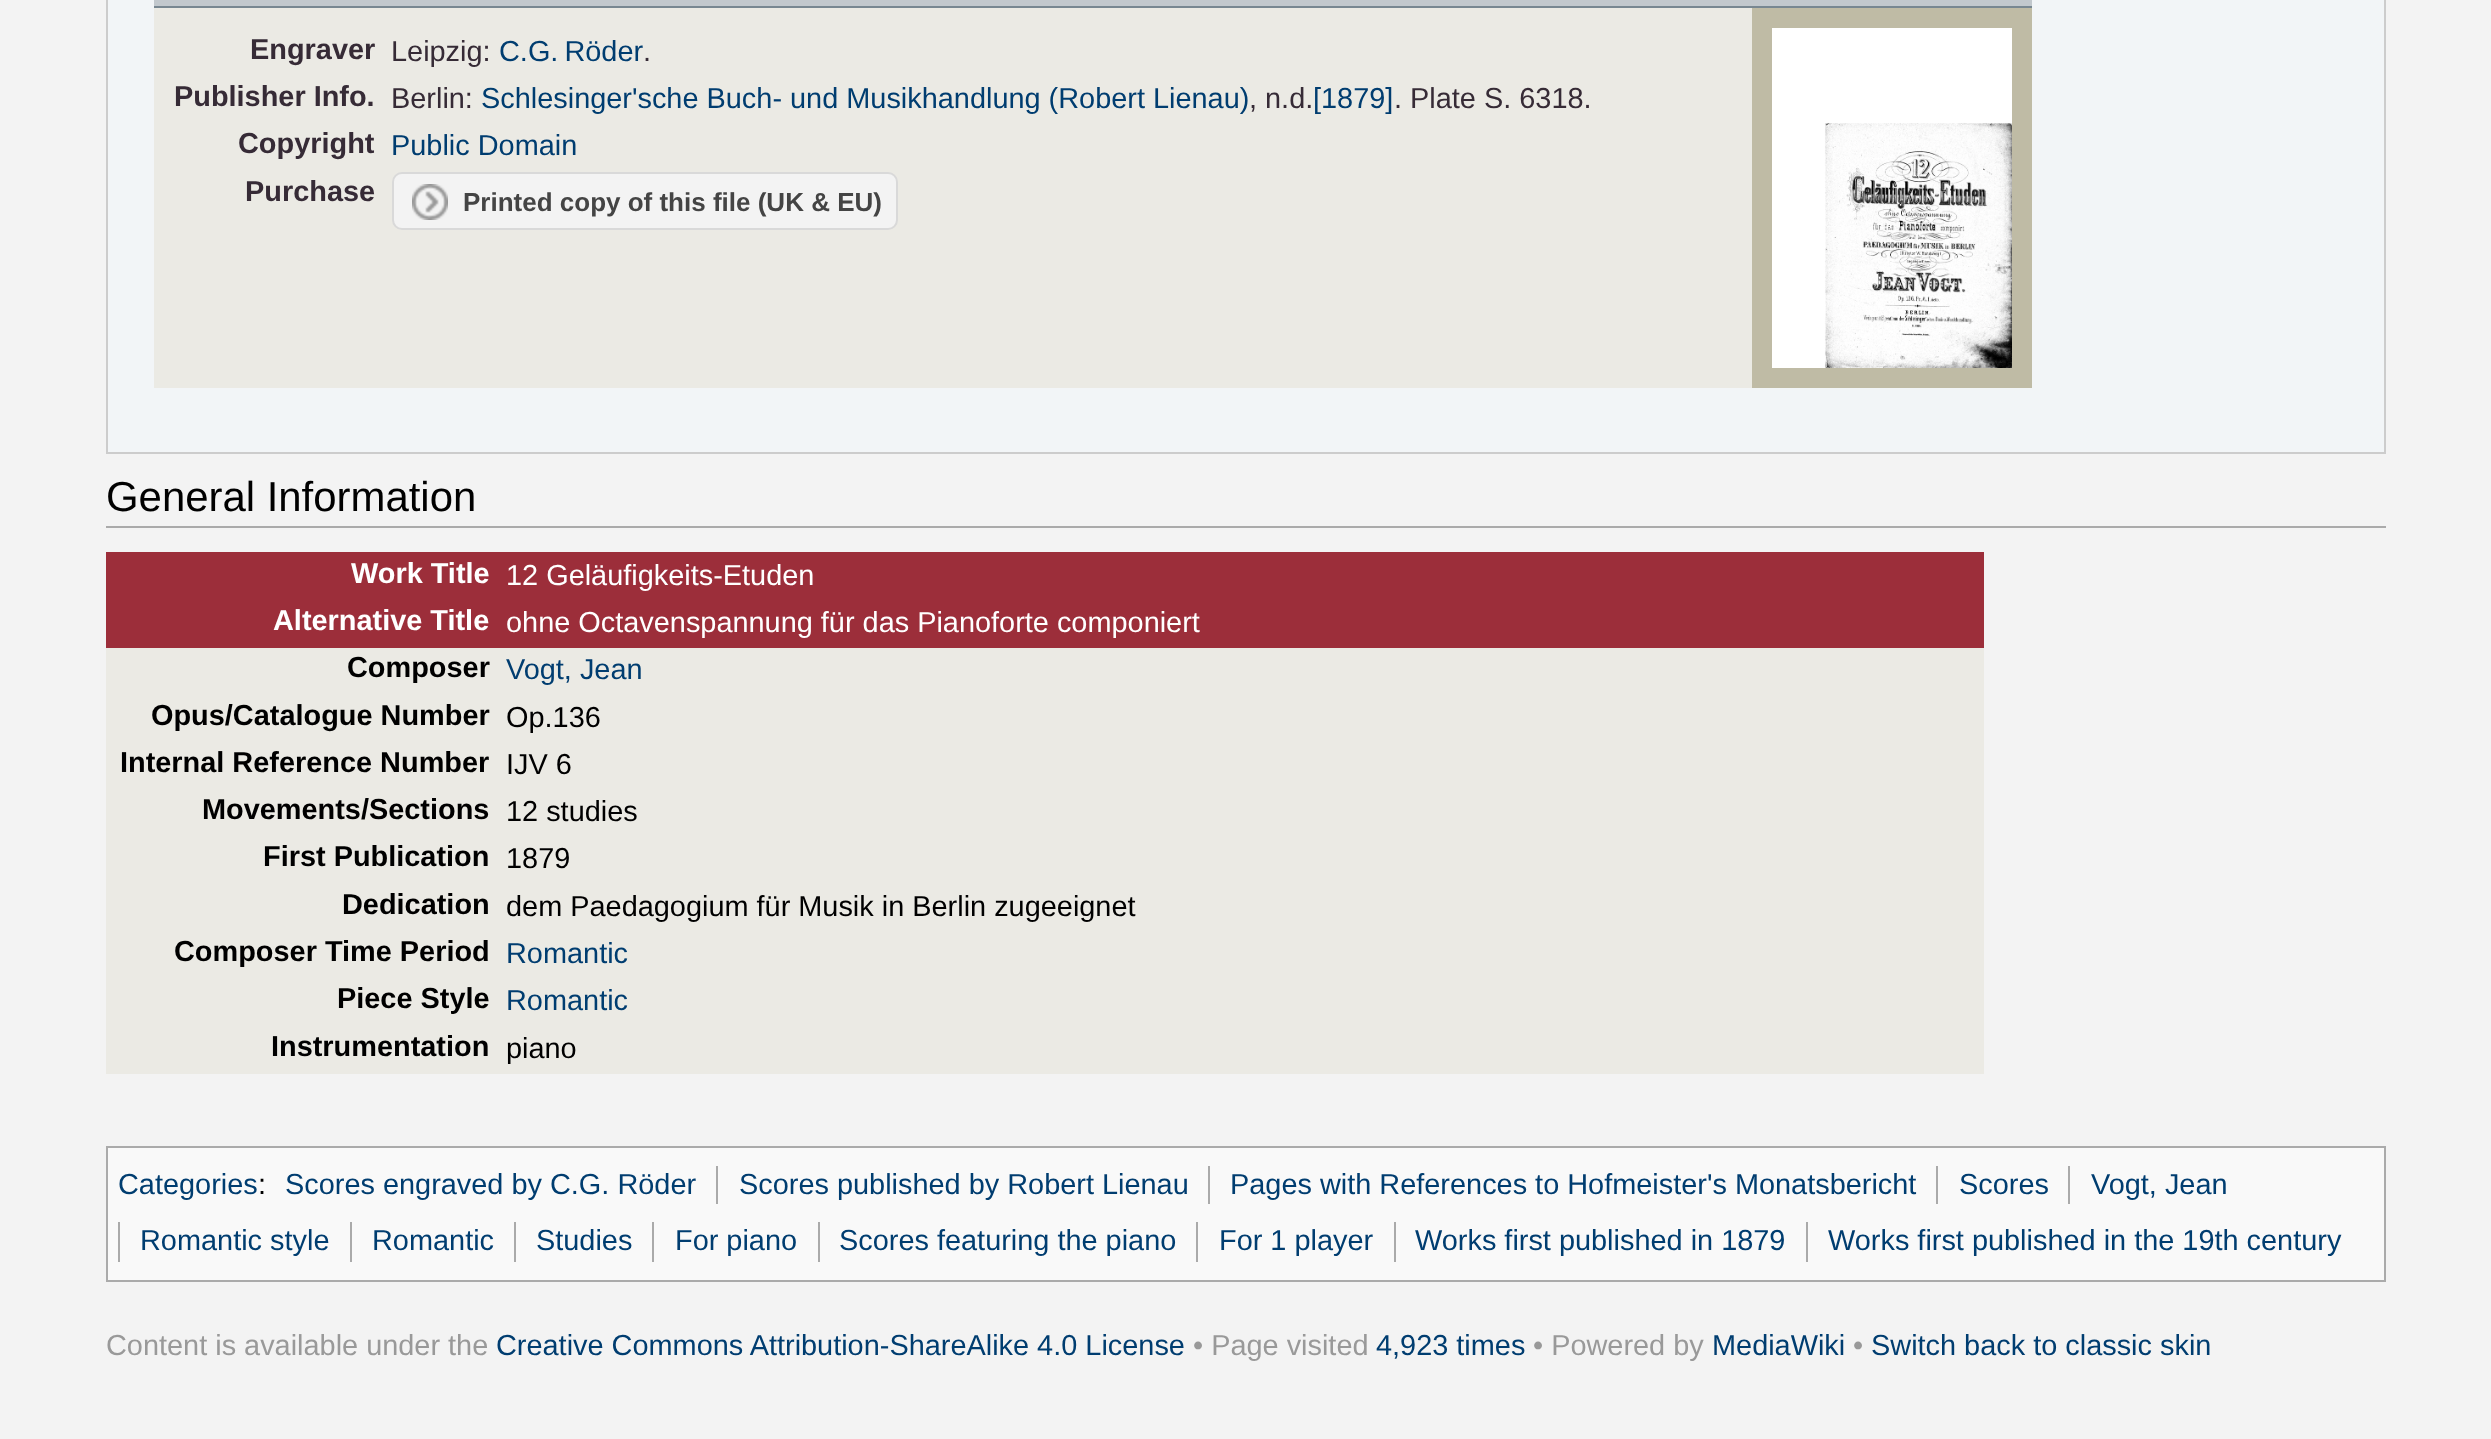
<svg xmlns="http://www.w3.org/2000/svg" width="2491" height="1439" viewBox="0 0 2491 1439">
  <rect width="100%" height="100%" fill="#f3f3f3"/>
  <rect x="107" y="-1" width="2278" height="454" fill="#f2f5f7" stroke="#cccccc" stroke-width="2"/>
  <rect x="154" y="0" width="1878" height="6" fill="#c2c8cd"/>
  <rect x="154" y="6" width="1878" height="2" fill="#788791"/>
  <rect x="1752" y="8" width="280" height="380" fill="#bfbba5"/>
  <rect x="154" y="8" width="1598" height="380" fill="#ebeae4"/>
  <text x="250" y="59" font-family="Liberation Sans" font-size="28.9" font-weight="bold" fill="#362b36">Engraver</text>
  <text x="391" y="61" font-family="Liberation Sans" font-size="28.9" fill="#362b36">Leipzig:</text>
  <text x="499" y="61" word-spacing="-2" font-family="Liberation Sans" font-size="28.9" fill="#003d70">C.G. Röder</text>
  <text x="643" y="61" font-family="Liberation Sans" font-size="28.9" fill="#362b36">.</text>
  <text x="174" y="106" font-family="Liberation Sans" font-size="28.9" font-weight="bold" fill="#362b36">Publisher Info.</text>
  <text x="391" y="108" font-family="Liberation Sans" font-size="28.9" fill="#362b36">Berlin:</text>
  <text x="481" y="108" font-family="Liberation Sans" font-size="28.9" fill="#003d70">Schlesinger'sche Buch- und Musikhandlung (Robert Lienau)</text>
  <text x="1249" y="108" font-family="Liberation Sans" font-size="28.9" fill="#362b36">, n.d.</text>
  <text x="1313" y="108" font-family="Liberation Sans" font-size="28.9" fill="#003d70">[1879]</text>
  <text x="1394" y="108" font-family="Liberation Sans" font-size="28.9" fill="#362b36">. Plate S. 6318.</text>
  <text x="238" y="153" font-family="Liberation Sans" font-size="28.9" font-weight="bold" fill="#362b36">Copyright</text>
  <text x="391" y="155" font-family="Liberation Sans" font-size="28.9" fill="#003d70">Public Domain</text>
  <text x="245" y="201" font-family="Liberation Sans" font-size="28.9" font-weight="bold" fill="#362b36">Purchase</text>
  <rect x="393" y="173" width="504" height="56" rx="9" fill="#f3f3f3" stroke="#d9d9d9" stroke-width="2"/>
  <image x="412" y="184" width="36" height="36" href="img1.png"/>
  <text x="463" y="211" font-family="Liberation Sans" font-size="26" font-weight="bold" fill="#444444">Printed copy of this file (UK &amp; EU)</text>
  <image x="1772" y="28" width="240" height="340" href="img2.png"/>
  <rect x="106" y="526" width="2280" height="2" fill="#aaaaaa"/>
  <text x="106" y="511" font-family="Liberation Sans" font-size="41.9" fill="#000000">General Information</text>
  <rect x="106" y="648" width="1878" height="426" fill="#ebeae4"/>
  <rect x="106" y="552" width="1878" height="48" fill="#9c2e3a"/>
  <text x="351" y="583" font-family="Liberation Sans" font-size="28.9" font-weight="bold" fill="#ffffff">Work Title</text>
  <text x="506" y="585" font-family="Liberation Sans" font-size="28.9" fill="#ffffff">12 Geläufigkeits-Etuden</text>
  <rect x="106" y="600" width="1878" height="48" fill="#9c2e3a"/>
  <text x="273" y="630" font-family="Liberation Sans" font-size="28.9" font-weight="bold" fill="#ffffff">Alternative Title</text>
  <text x="506" y="632" font-family="Liberation Sans" font-size="28.9" fill="#ffffff">ohne Octavenspannung für das Pianoforte componiert</text>
  <text x="347" y="677" font-family="Liberation Sans" font-size="28.9" font-weight="bold" fill="#000000">Composer</text>
  <text x="506" y="679" font-family="Liberation Sans" font-size="28.9" fill="#003d70">Vogt, Jean</text>
  <text x="151" y="725" font-family="Liberation Sans" font-size="28.9" font-weight="bold" fill="#000000">Opus/Catalogue Number</text>
  <text x="506" y="727" font-family="Liberation Sans" font-size="28.9" fill="#000000">Op.136</text>
  <text x="120" y="772" font-family="Liberation Sans" font-size="28.9" font-weight="bold" fill="#000000">Internal Reference Number</text>
  <text x="506" y="774" font-family="Liberation Sans" font-size="28.9" fill="#000000">IJV 6</text>
  <text x="202" y="819" font-family="Liberation Sans" font-size="28.9" font-weight="bold" fill="#000000">Movements/Sections</text>
  <text x="506" y="821" font-family="Liberation Sans" font-size="28.9" fill="#000000">12 studies</text>
  <text x="263" y="866" font-family="Liberation Sans" font-size="28.9" font-weight="bold" fill="#000000">First Publication</text>
  <text x="506" y="868" font-family="Liberation Sans" font-size="28.9" fill="#000000">1879</text>
  <text x="342" y="914" font-family="Liberation Sans" font-size="28.9" font-weight="bold" fill="#000000">Dedication</text>
  <text x="506" y="916" font-family="Liberation Sans" font-size="28.9" fill="#000000">dem Paedagogium für Musik in Berlin zugeeignet</text>
  <text x="174" y="961" font-family="Liberation Sans" font-size="28.9" font-weight="bold" fill="#000000">Composer Time Period</text>
  <text x="506" y="963" font-family="Liberation Sans" font-size="28.9" fill="#003d70">Romantic</text>
  <text x="337" y="1008" font-family="Liberation Sans" font-size="28.9" font-weight="bold" fill="#000000">Piece Style</text>
  <text x="506" y="1010" font-family="Liberation Sans" font-size="28.9" fill="#003d70">Romantic</text>
  <text x="271" y="1056" font-family="Liberation Sans" font-size="28.9" font-weight="bold" fill="#000000">Instrumentation</text>
  <text x="506" y="1058" font-family="Liberation Sans" font-size="28.9" fill="#000000">piano</text>
  <rect x="107" y="1147" width="2278" height="134" fill="#f9f9f9" stroke="#aaaaaa" stroke-width="2"/>
  <text x="118" y="1194" font-family="Liberation Sans" font-size="28.9" fill="#003d70">Categories</text>
  <text x="285" y="1194" font-family="Liberation Sans" font-size="28.9" fill="#003d70">Scores engraved by C.G. Röder</text>
  <rect x="716" y="1166" width="2" height="38" fill="#aaaaaa"/>
  <text x="739" y="1194" font-family="Liberation Sans" font-size="28.9" fill="#003d70">Scores published by Robert Lienau</text>
  <rect x="1208" y="1166" width="2" height="38" fill="#aaaaaa"/>
  <text x="1230" y="1194" font-family="Liberation Sans" font-size="28.9" fill="#003d70">Pages with References to Hofmeister's Monatsbericht</text>
  <rect x="1936" y="1166" width="2" height="38" fill="#aaaaaa"/>
  <text x="1959" y="1194" font-family="Liberation Sans" font-size="28.9" fill="#003d70">Scores</text>
  <rect x="2068" y="1166" width="2" height="38" fill="#aaaaaa"/>
  <text x="2091" y="1194" font-family="Liberation Sans" font-size="28.9" fill="#003d70">Vogt, Jean</text>
  <rect x="118" y="1222" width="2" height="40" fill="#aaaaaa"/>
  <text x="140" y="1250" font-family="Liberation Sans" font-size="28.9" fill="#003d70">Romantic style</text>
  <rect x="350" y="1222" width="2" height="40" fill="#aaaaaa"/>
  <text x="372" y="1250" font-family="Liberation Sans" font-size="28.9" fill="#003d70">Romantic</text>
  <rect x="514" y="1222" width="2" height="40" fill="#aaaaaa"/>
  <text x="536" y="1250" font-family="Liberation Sans" font-size="28.9" fill="#003d70">Studies</text>
  <rect x="652" y="1222" width="2" height="40" fill="#aaaaaa"/>
  <text x="675" y="1250" font-family="Liberation Sans" font-size="28.9" fill="#003d70">For piano</text>
  <rect x="818" y="1222" width="2" height="40" fill="#aaaaaa"/>
  <text x="839" y="1250" font-family="Liberation Sans" font-size="28.9" fill="#003d70">Scores featuring the piano</text>
  <rect x="1196" y="1222" width="2" height="40" fill="#aaaaaa"/>
  <text x="1219" y="1250" font-family="Liberation Sans" font-size="28.9" fill="#003d70">For 1 player</text>
  <rect x="1394" y="1222" width="2" height="40" fill="#aaaaaa"/>
  <text x="1415" y="1250" font-family="Liberation Sans" font-size="28.9" fill="#003d70">Works first published in 1879</text>
  <rect x="1806" y="1222" width="2" height="40" fill="#aaaaaa"/>
  <text x="1828" y="1250" font-family="Liberation Sans" font-size="28.9" fill="#003d70">Works first published in the 19th century</text>
  <text x="258" y="1194" font-family="Liberation Sans" font-size="28.9" fill="#000000">:</text>
  <text x="106" y="1355" font-family="Liberation Sans" font-size="28.9" fill="#999999">Content is available under the</text>
  <text x="496" y="1355" font-family="Liberation Sans" font-size="28.9" fill="#003d70">Creative Commons Attribution-ShareAlike 4.0 License</text>
  <text x="1193" y="1355" font-family="Liberation Sans" font-size="28.9" fill="#999999">• Page visited</text>
  <text x="1376" y="1355" font-family="Liberation Sans" font-size="28.9" fill="#003d70">4,923 times</text>
  <text x="1533" y="1355" font-family="Liberation Sans" font-size="28.9" fill="#999999">• Powered by</text>
  <text x="1712" y="1355" font-family="Liberation Sans" font-size="28.9" fill="#003d70">MediaWiki</text>
  <text x="1853" y="1355" font-family="Liberation Sans" font-size="28.9" fill="#999999">•</text>
  <text x="1871" y="1355" font-family="Liberation Sans" font-size="28.9" fill="#003d70">Switch back to classic skin</text>
</svg>
